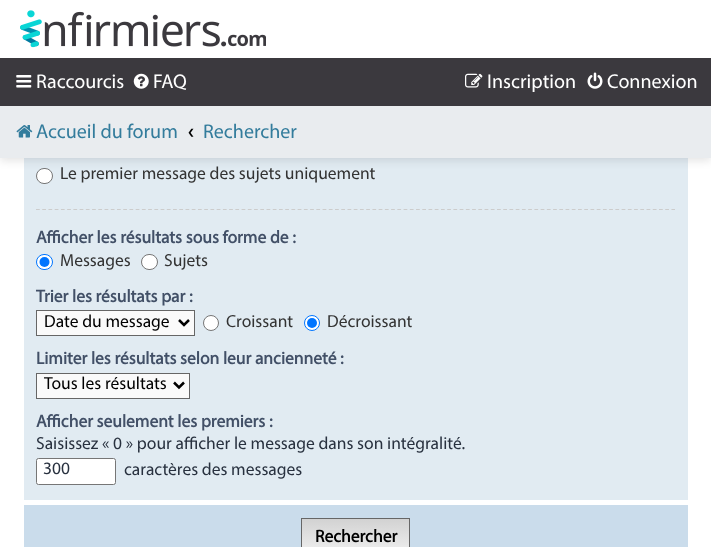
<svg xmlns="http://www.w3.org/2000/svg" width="711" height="547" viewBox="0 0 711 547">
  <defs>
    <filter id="blur1" x="-50%" y="-200%" width="200%" height="500%"><feGaussianBlur stdDeviation="4"/></filter>
    <linearGradient id="g1" gradientUnits="userSpaceOnUse" x1="356" y1="519" x2="356" y2="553"><stop offset="0" stop-color="#d2d2d2"/><stop offset="1" stop-color="#efefef"/></linearGradient>
  </defs>
  <rect width="100%" height="100%" fill="#ffffff"/>
  <rect x="24" y="158" width="664" height="342" fill="#e1ebf2"/>
  <rect x="36.5" y="168.5" width="16" height="15" rx="7.5" fill="#ffffff" stroke="#767676"/>
  <rect x="0" y="4" width="711" height="157" fill="#000000" fill-opacity="0.1" filter="url(#blur1)"/>
  <rect x="0" y="0" width="711" height="58" fill="#ffffff"/>
  <image x="20" y="10" width="246" height="38" href="img1.png"/>
  <rect x="0" y="58" width="711" height="48" fill="#3b393e"/>
  <image x="16" y="75" width="16" height="13" href="img2.png"/>
  <text x="36" y="88" font-family="Myriad" font-size="20" fill="#ffffff">Raccourcis</text>
  <image x="133" y="73" width="16" height="16" href="img3.png"/>
  <text x="153" y="88" font-family="Myriad" font-size="20" fill="#ffffff">FAQ</text>
  <image x="465" y="73" width="18" height="15" href="img4.png"/>
  <text x="487" y="88" font-family="Myriad" font-size="20" fill="#ffffff">Inscription</text>
  <image x="587" y="72" width="16" height="17" href="img5.png"/>
  <text x="607" y="88" font-family="Myriad" font-size="20" fill="#ffffff">Connexion</text>
  <rect x="0" y="106" width="711" height="52" fill="#e9ecef"/>
  <image x="16" y="125" width="17" height="13" href="img6.png"/>
  <text x="36" y="138" font-family="Myriad" font-size="20" fill="#337c9c">Accueil du forum</text>
  <text x="188" y="138" font-family="Myriad" font-size="20" font-weight="bold" fill="#000000">‹</text>
  <text x="203" y="138" font-family="Myriad" font-size="20" fill="#337c9c">Rechercher</text>
  <text x="60" y="179" font-family="Myriad" font-size="17.5" fill="#333333">Le premier message des sujets uniquement</text>
  <path d="M36 209.5H675" fill="none" stroke="#cccccc" stroke-width="1.2" stroke-dasharray="3.75 2.48"/>
  <text x="36" y="243" font-family="Myriad" font-size="17.5" font-weight="bold" fill="#425067">Afficher les résultats sous forme de :</text>
  <rect x="36.5" y="254.5" width="16" height="15" rx="7.5" fill="#ffffff" stroke="#0075ff"/>
  <circle cx="44.5" cy="262" r="5" fill="#0075ff"/>
  <text x="60" y="266" font-family="Myriad" font-size="17.5" fill="#333333">Messages</text>
  <rect x="141.5" y="254.5" width="16" height="15" rx="7.5" fill="#ffffff" stroke="#767676"/>
  <text x="164" y="266" font-family="Myriad" font-size="17.5" fill="#333333">Sujets</text>
  <text x="36" y="302" font-family="Myriad" font-size="17.5" font-weight="bold" fill="#425067">Trier les résultats par :</text>
  <rect x="36.5" y="310.5" width="158" height="25" fill="#fafafa" stroke="#666666"/>
  <path d="M179 320L184 325L189 320" fill="none" stroke="#000000" stroke-width="2.5"/>
  <text x="44" y="327" font-family="Myriad" font-size="17.5" fill="#000000">Date du message</text>
  <circle cx="211" cy="323" r="7.5" fill="#ffffff" stroke="#767676"/>
  <text x="226" y="327" font-family="Myriad" font-size="17.5" fill="#333333">Croissant</text>
  <circle cx="312" cy="323" r="7.5" fill="#ffffff" stroke="#0075ff"/>
  <circle cx="312" cy="323" r="5" fill="#0075ff"/>
  <text x="327" y="327" font-family="Myriad" font-size="17.5" fill="#333333">Décroissant</text>
  <text x="36" y="364" font-family="Myriad" font-size="17.5" font-weight="bold" fill="#425067">Limiter les résultats selon leur ancienneté :</text>
  <rect x="36.5" y="373.5" width="153" height="25" fill="#fafafa" stroke="#666666"/>
  <path d="M174 382.5L179 387.5L184 382.5" fill="none" stroke="#000000" stroke-width="2.5"/>
  <text x="44" y="389" font-family="Myriad" font-size="17.5" fill="#000000">Tous les résultats</text>
  <text x="36" y="427" font-family="Myriad" font-size="17.5" font-weight="bold" fill="#425067">Afficher seulement les premiers :</text>
  <text x="36" y="449" font-family="Myriad" font-size="17.5" fill="#28313f">Saisissez « 0 » pour afficher le message dans son intégralité.</text>
  <rect x="36.5" y="458.5" width="79" height="26" rx="2" fill="#ffffff" stroke="#767676"/>
  <text x="43" y="474" font-family="Myriad" font-size="17.5" fill="#28313f">300</text>
  <text x="124" y="475" font-family="Myriad" font-size="17.5" fill="#28313f">caractères des messages</text>
  <rect x="24" y="505" width="664" height="42" fill="#cadceb"/>
  <rect x="302" y="519" width="107" height="28" fill="url(#g1)"/>
  <rect x="301.5" y="518.5" width="108" height="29" fill="none" stroke="#666666"/>
  <text x="315" y="542" font-family="Myriad" font-size="17.5" font-weight="bold" fill="#000000">Rechercher</text>
</svg>
